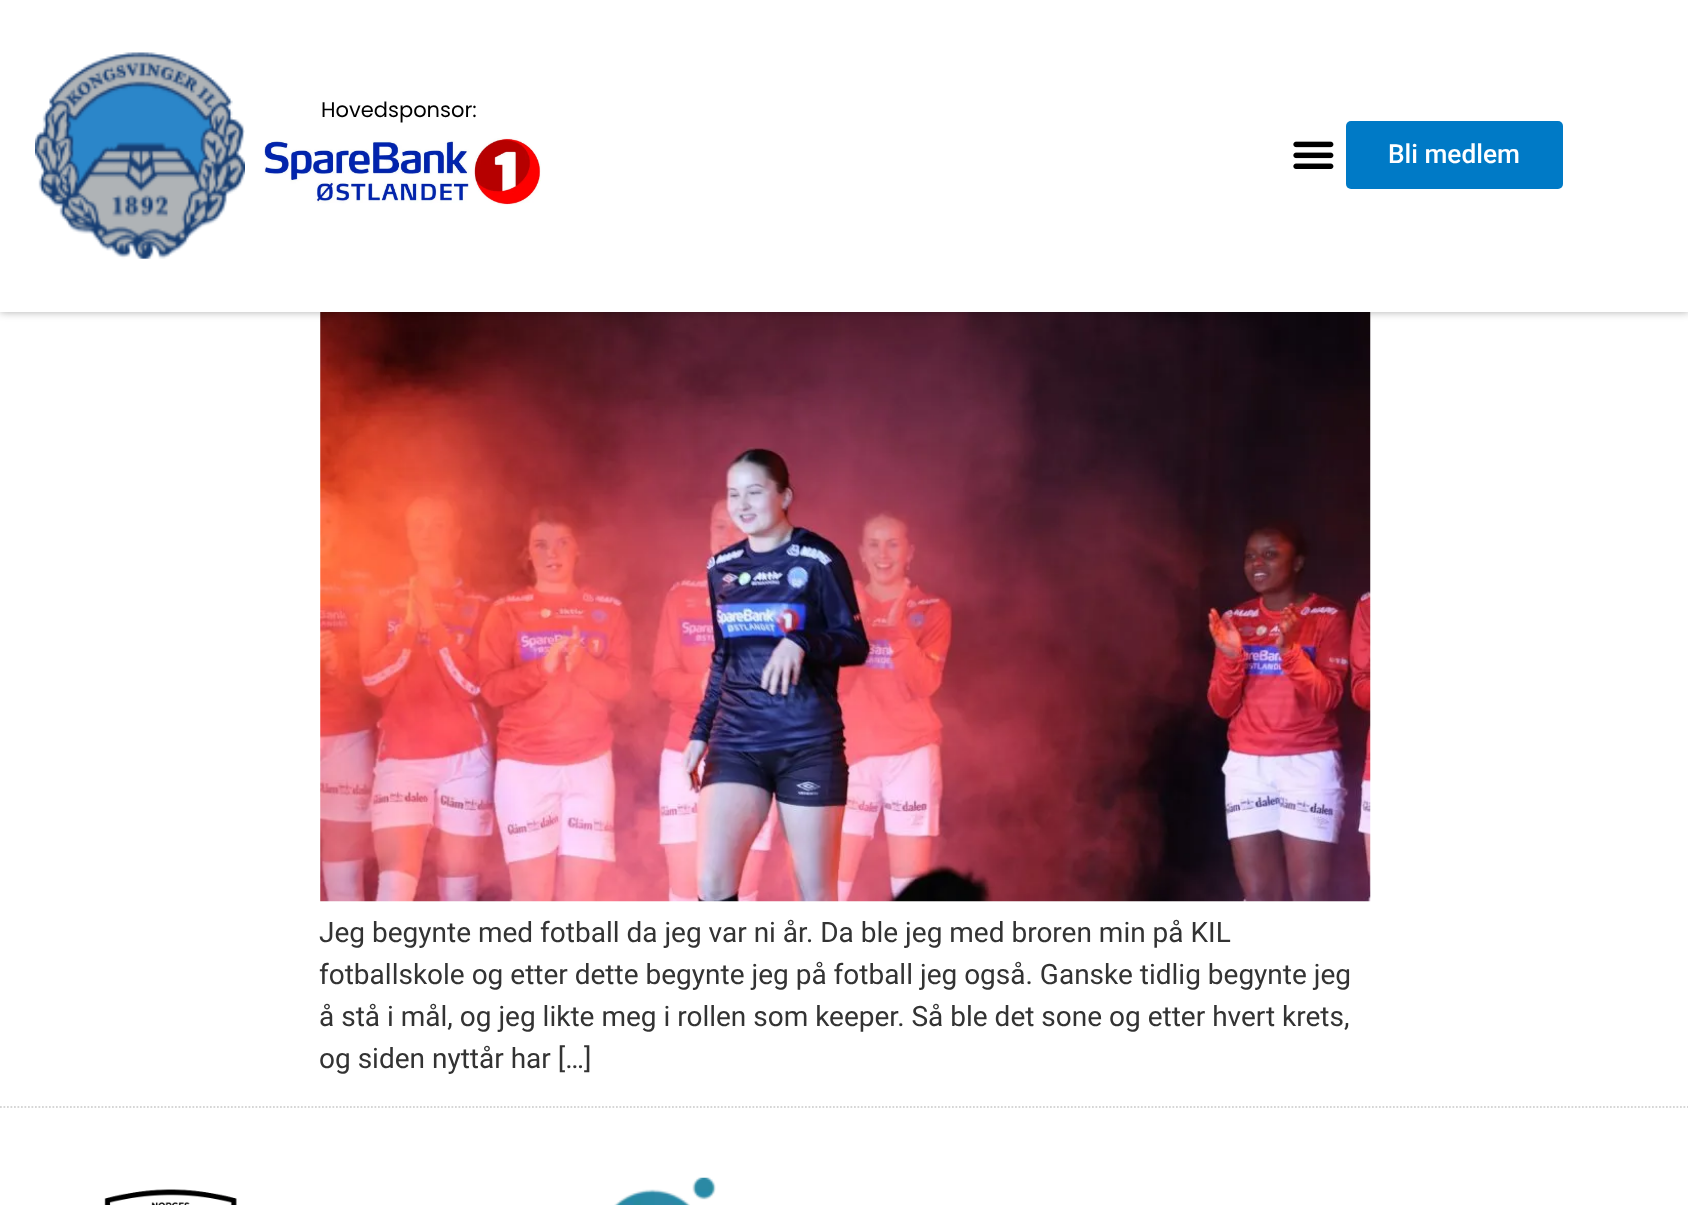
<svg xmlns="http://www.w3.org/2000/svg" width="1688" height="1205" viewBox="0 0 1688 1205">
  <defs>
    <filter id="blur1" x="-50%" y="-200%" width="200%" height="500%"><feGaussianBlur stdDeviation="4.5"/></filter>
  </defs>
  <rect width="100%" height="100%" fill="#ffffff"/>
  <image x="320" y="312" width="1051" height="590" href="img4.png"/>
  <rect x="0" y="0" width="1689" height="312" fill="#000000" fill-opacity="0.32" filter="url(#blur1)"/>
  <rect x="0" y="0" width="1688" height="312" fill="#ffffff"/>
  <image x="35" y="52" width="210" height="207" href="img1.png"/>
  <text x="321" y="117" font-family="Poppins" font-size="21" fill="#000000">Hovedsponsor:</text>
  <image x="264" y="138" width="277" height="68" href="img2.png"/>
  <image x="1293" y="141" width="41" height="28" href="img3.png"/>
  <rect x="1346" y="121" width="217" height="68" rx="5" fill="#007ac6"/>
  <text x="1388" y="163" font-family="Roboto" font-size="26.25" font-weight="500" fill="#ffffff">Bli medlem</text>
  <text x="319" y="942" font-family="Roboto" font-size="28" fill="#333333">Jeg begynte med fotball da jeg var ni år. Da ble jeg med broren min på KIL</text>
  <text x="319" y="984" font-family="Roboto" font-size="28" fill="#333333">fotballskole og etter dette begynte jeg på fotball jeg også. Ganske tidlig begynte jeg</text>
  <text x="319" y="1026" font-family="Roboto" font-size="28" fill="#333333">å stå i mål, og jeg likte meg i rollen som keeper. Så ble det sone og etter hvert krets,</text>
  <text x="319" y="1068" font-family="Roboto" font-size="28" fill="#333333">og siden nyttår har […]</text>
  <path d="M0 1107H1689" fill="none" stroke="#d6d6d6" stroke-width="1.8" stroke-dasharray="1.75 1.75"/>
  <image x="104" y="1189" width="133" height="16" href="img5.png"/>
  <image x="614" y="1177" width="102" height="28" href="img6.png"/>
</svg>
